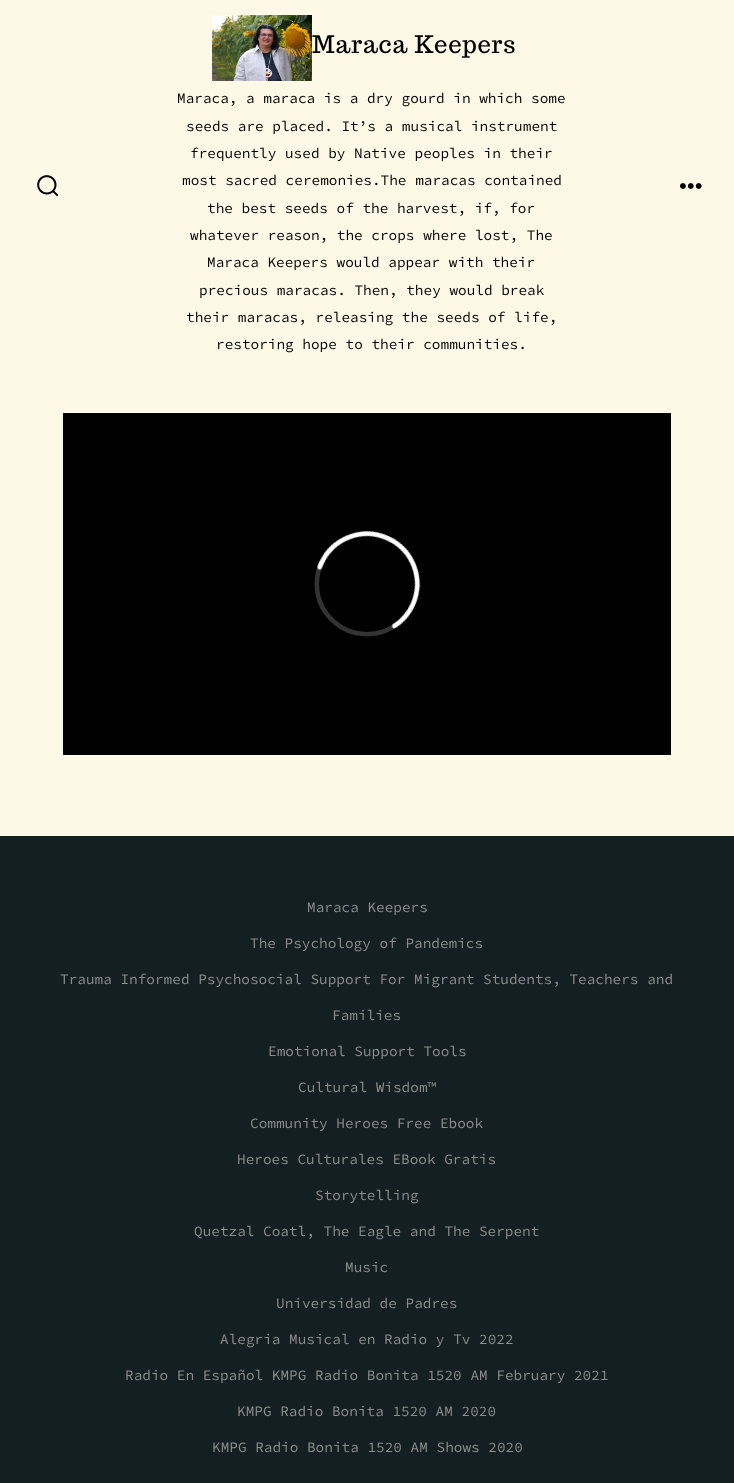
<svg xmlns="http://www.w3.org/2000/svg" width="734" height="1483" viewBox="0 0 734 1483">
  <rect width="100%" height="100%" fill="#fef8e7"/>
  <image x="37" y="175" width="21" height="21" href="img1.png"/>
  <image x="212" y="15" width="100" height="66" href="img2.png"/>
  <text x="312" y="53" font-family="Trocchi" font-size="24" letter-spacing="0.75" fill="#000000">Maraca Keepers</text>
  <text x="177" y="103" font-family="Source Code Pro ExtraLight" font-size="14.4" fill="#000000">Maraca, a maraca is a dry gourd in which some</text>
  <text x="186" y="131" font-family="Source Code Pro ExtraLight" font-size="14.4" fill="#000000">seeds are placed. It’s a musical instrument</text>
  <text x="190" y="158" font-family="Source Code Pro ExtraLight" font-size="14.4" fill="#000000">frequently used by Native peoples in their</text>
  <text x="182" y="185" font-family="Source Code Pro ExtraLight" font-size="14.4" fill="#000000">most sacred ceremonies.The maracas contained</text>
  <text x="207" y="213" font-family="Source Code Pro ExtraLight" font-size="14.4" fill="#000000">the best seeds of the harvest, if, for</text>
  <text x="190" y="240" font-family="Source Code Pro ExtraLight" font-size="14.4" fill="#000000">whatever reason, the crops where lost, The</text>
  <text x="207" y="267" font-family="Source Code Pro ExtraLight" font-size="14.4" fill="#000000">Maraca Keepers would appear with their</text>
  <text x="199" y="295" font-family="Source Code Pro ExtraLight" font-size="14.4" fill="#000000">precious maracas. Then, they would break</text>
  <text x="186" y="322" font-family="Source Code Pro ExtraLight" font-size="14.4" fill="#000000">their maracas, releasing the seeds of life,</text>
  <text x="216" y="349" font-family="Source Code Pro ExtraLight" font-size="14.4" fill="#000000">restoring hope to their communities.</text>
  <image x="680" y="183" width="22" height="6" href="img3.png"/>
  <image x="63" y="413" width="608" height="342" href="img4.png"/>
  <rect x="0" y="836" width="734" height="647" fill="#141f24"/>
  <text x="307" y="912" font-family="Source Code Pro ExtraLight" font-size="14.4" fill="#8c8c8c">Maraca Keepers</text>
  <text x="250" y="948" font-family="Source Code Pro ExtraLight" font-size="14.4" fill="#8c8c8c">The Psychology of Pandemics</text>
  <text x="60" y="984" font-family="Source Code Pro ExtraLight" font-size="14.4" fill="#8c8c8c">Trauma Informed Psychosocial Support For Migrant Students, Teachers and</text>
  <text x="332" y="1020" font-family="Source Code Pro ExtraLight" font-size="14.4" fill="#8c8c8c">Families</text>
  <text x="268" y="1056" font-family="Source Code Pro ExtraLight" font-size="14.4" fill="#8c8c8c">Emotional Support Tools</text>
  <text x="298" y="1092" font-family="Source Code Pro ExtraLight" font-size="14.4" fill="#8c8c8c">Cultural Wisdom™</text>
  <text x="250" y="1128" font-family="Source Code Pro ExtraLight" font-size="14.4" fill="#8c8c8c">Community Heroes Free Ebook</text>
  <text x="237" y="1164" font-family="Source Code Pro ExtraLight" font-size="14.4" fill="#8c8c8c">Heroes Culturales EBook Gratis</text>
  <text x="315" y="1200" font-family="Source Code Pro ExtraLight" font-size="14.4" fill="#8c8c8c">Storytelling</text>
  <text x="194" y="1236" font-family="Source Code Pro ExtraLight" font-size="14.4" fill="#8c8c8c">Quetzal Coatl, The Eagle and The Serpent</text>
  <text x="345" y="1272" font-family="Source Code Pro ExtraLight" font-size="14.4" fill="#8c8c8c">Music</text>
  <text x="276" y="1308" font-family="Source Code Pro ExtraLight" font-size="14.4" fill="#8c8c8c">Universidad de Padres</text>
  <text x="220" y="1344" font-family="Source Code Pro ExtraLight" font-size="14.4" fill="#8c8c8c">Alegria Musical en Radio y Tv 2022</text>
  <text x="125" y="1380" font-family="Source Code Pro ExtraLight" font-size="14.4" fill="#8c8c8c">Radio En Español KMPG Radio Bonita 1520 AM February 2021</text>
  <text x="237" y="1416" font-family="Source Code Pro ExtraLight" font-size="14.4" fill="#8c8c8c">KMPG Radio Bonita 1520 AM 2020</text>
  <text x="212" y="1452" font-family="Source Code Pro ExtraLight" font-size="14.4" fill="#8c8c8c">KMPG Radio Bonita 1520 AM Shows 2020</text>
</svg>
